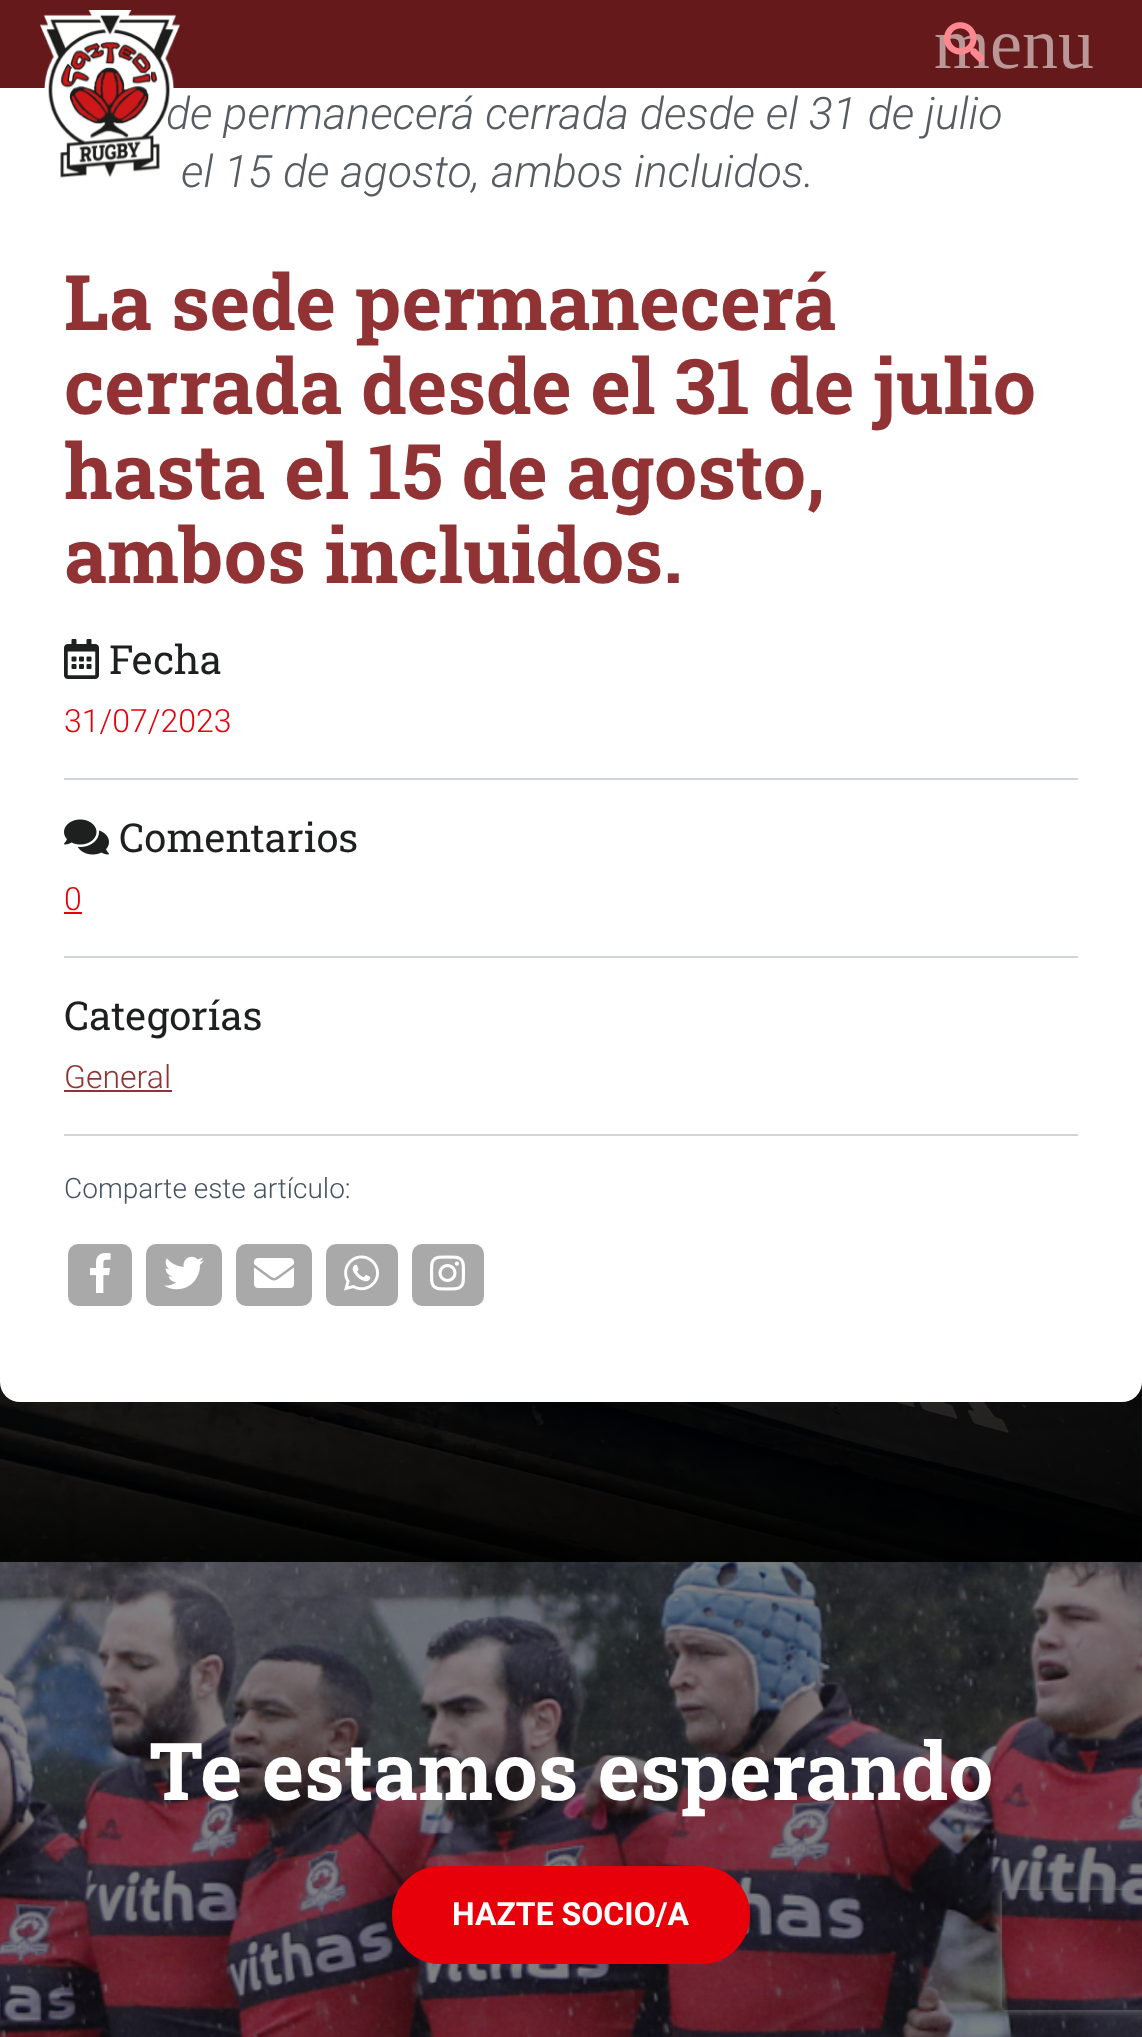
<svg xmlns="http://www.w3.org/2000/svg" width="1142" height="2037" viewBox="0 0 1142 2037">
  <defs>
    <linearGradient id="g1" gradientUnits="userSpaceOnUse" x1="571" y1="0" x2="571" y2="1600"><stop offset="0.5" stop-color="#000000" stop-opacity="0.15"/><stop offset="1" stop-color="#000000"/></linearGradient>
    <filter id="blur1" x="-50%" y="-200%" width="200%" height="500%"><feGaussianBlur stdDeviation="16"/></filter>
    <clipPath id="clip1"><path d="M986 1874H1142V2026H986ZM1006 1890H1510C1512 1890 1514 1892 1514 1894V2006C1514 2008 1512 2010 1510 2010H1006C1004 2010 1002 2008 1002 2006V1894C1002 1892 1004 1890 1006 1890Z" clip-rule="evenodd"/></clipPath>
    <filter id="blur2" x="-50%" y="-200%" width="200%" height="500%"><feGaussianBlur stdDeviation="5"/></filter>
  </defs>
  <rect width="100%" height="100%" fill="#ffffff"/>
  <image x="0" y="1382" width="1142" height="180" href="img10.png"/>
  <rect x="0" y="1382" width="1142" height="180" fill="url(#g1)"/>
  <rect x="0" y="-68" width="1142" height="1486" rx="20" fill="#000000" fill-opacity="0.15" filter="url(#blur1)"/>
  <rect x="0" y="-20" width="1142" height="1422" rx="20" fill="#ffffff"/>
  <rect x="0" y="0" width="1142" height="88" fill="#540001" fill-opacity="0.9"/>
  <text x="166" y="129" font-family="Roboto" font-size="44.75" font-weight="300" font-style="italic" fill="#565c61">de permanecerá cerrada desde el 31 de julio</text>
  <image x="40" y="10" width="140" height="174" href="img1.png"/>
  <text x="934" y="68" font-family="Liberation Serif" font-size="72" fill="#ba9898">menu</text>
  <image x="944" y="22" width="40" height="41" href="img2.png"/>
  <text x="181" y="187" font-family="Roboto" font-size="44.75" font-weight="300" font-style="italic" fill="#565c61">el 15 de agosto, ambos incluidos.</text>
  <text x="64" y="330" font-family="Roboto Slab" font-size="76.75" font-weight="bold" fill="#913334">La sede permanecerá</text>
  <text x="64" y="414" font-family="Roboto Slab" font-size="76.75" font-weight="bold" fill="#913334">cerrada desde el 31 de julio</text>
  <text x="64" y="499" font-family="Roboto Slab" font-size="76.75" font-weight="bold" fill="#913334">hasta el 15 de agosto,</text>
  <text x="64" y="583" font-family="Roboto Slab" font-size="76.75" font-weight="bold" fill="#913334">ambos incluidos.</text>
  <image x="64" y="639" width="35" height="40" href="img3.png"/>
  <text x="109" y="674" font-family="Roboto Slab" font-size="40" fill="#1e1f1f">Fecha</text>
  <text x="64" y="732" font-family="Roboto" font-size="32" font-weight="300" fill="#e7000a">31/07/2023</text>
  <rect x="64" y="778" width="1014" height="2" fill="#d1d4d7"/>
  <image x="64" y="819" width="45" height="36" href="img4.png"/>
  <text x="119" y="852" font-family="Roboto Slab" font-size="40" fill="#1e1f1f">Comentarios</text>
  <text x="64" y="910" font-family="Roboto" font-size="32" font-weight="300" fill="#e7000a">0</text>
  <rect x="64" y="912" width="18" height="2" fill="#e7000a"/>
  <rect x="64" y="956" width="1014" height="2" fill="#d1d4d7"/>
  <text x="64" y="1030" font-family="Roboto Slab" font-size="40" fill="#1e1f1f">Categorías</text>
  <text x="64" y="1088" font-family="Roboto" font-size="32" font-weight="300" fill="#913334">General</text>
  <rect x="64" y="1090" width="108" height="2" fill="#913334"/>
  <rect x="64" y="1134" width="1014" height="2" fill="#d1d4d7"/>
  <text x="64" y="1198" font-family="Roboto" font-size="28" font-weight="300" fill="#455260">Comparte este artículo:</text>
  <rect x="68" y="1244" width="64" height="62" rx="10" fill="#a9a9a9"/>
  <image x="90" y="1253" width="21" height="40" href="img5.png"/>
  <rect x="146" y="1244" width="76" height="62" rx="10" fill="#a9a9a9"/>
  <image x="164" y="1256" width="40" height="34" href="img6.png"/>
  <rect x="236" y="1244" width="76" height="62" rx="10" fill="#a9a9a9"/>
  <image x="254" y="1258" width="40" height="30" href="img7.png"/>
  <rect x="326" y="1244" width="72" height="62" rx="10" fill="#a9a9a9"/>
  <image x="344" y="1255" width="35" height="36" href="img8.png"/>
  <rect x="412" y="1244" width="72" height="62" rx="10" fill="#a9a9a9"/>
  <image x="430" y="1255" width="35" height="36" href="img9.png"/>
  <image x="0" y="1562" width="1142" height="475" href="img11.png"/>
  <text x="149" y="1800" font-family="Roboto Slab" font-size="80" font-weight="bold" fill="#ffffff">Te estamos esperando</text>
  <rect x="394" y="1868" width="354" height="94" rx="47" fill="#e7000a" stroke="#e7000a" stroke-width="4"/>
  <text x="452" y="1925" font-family="Roboto" font-size="32" font-weight="bold" fill="#ffffff">HAZTE SOCIO/A</text>
  <g clip-path="url(#clip1)">
    <rect x="1002" y="1890" width="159" height="120" rx="4" fill="#808080" filter="url(#blur2)"/>
  </g>
</svg>
